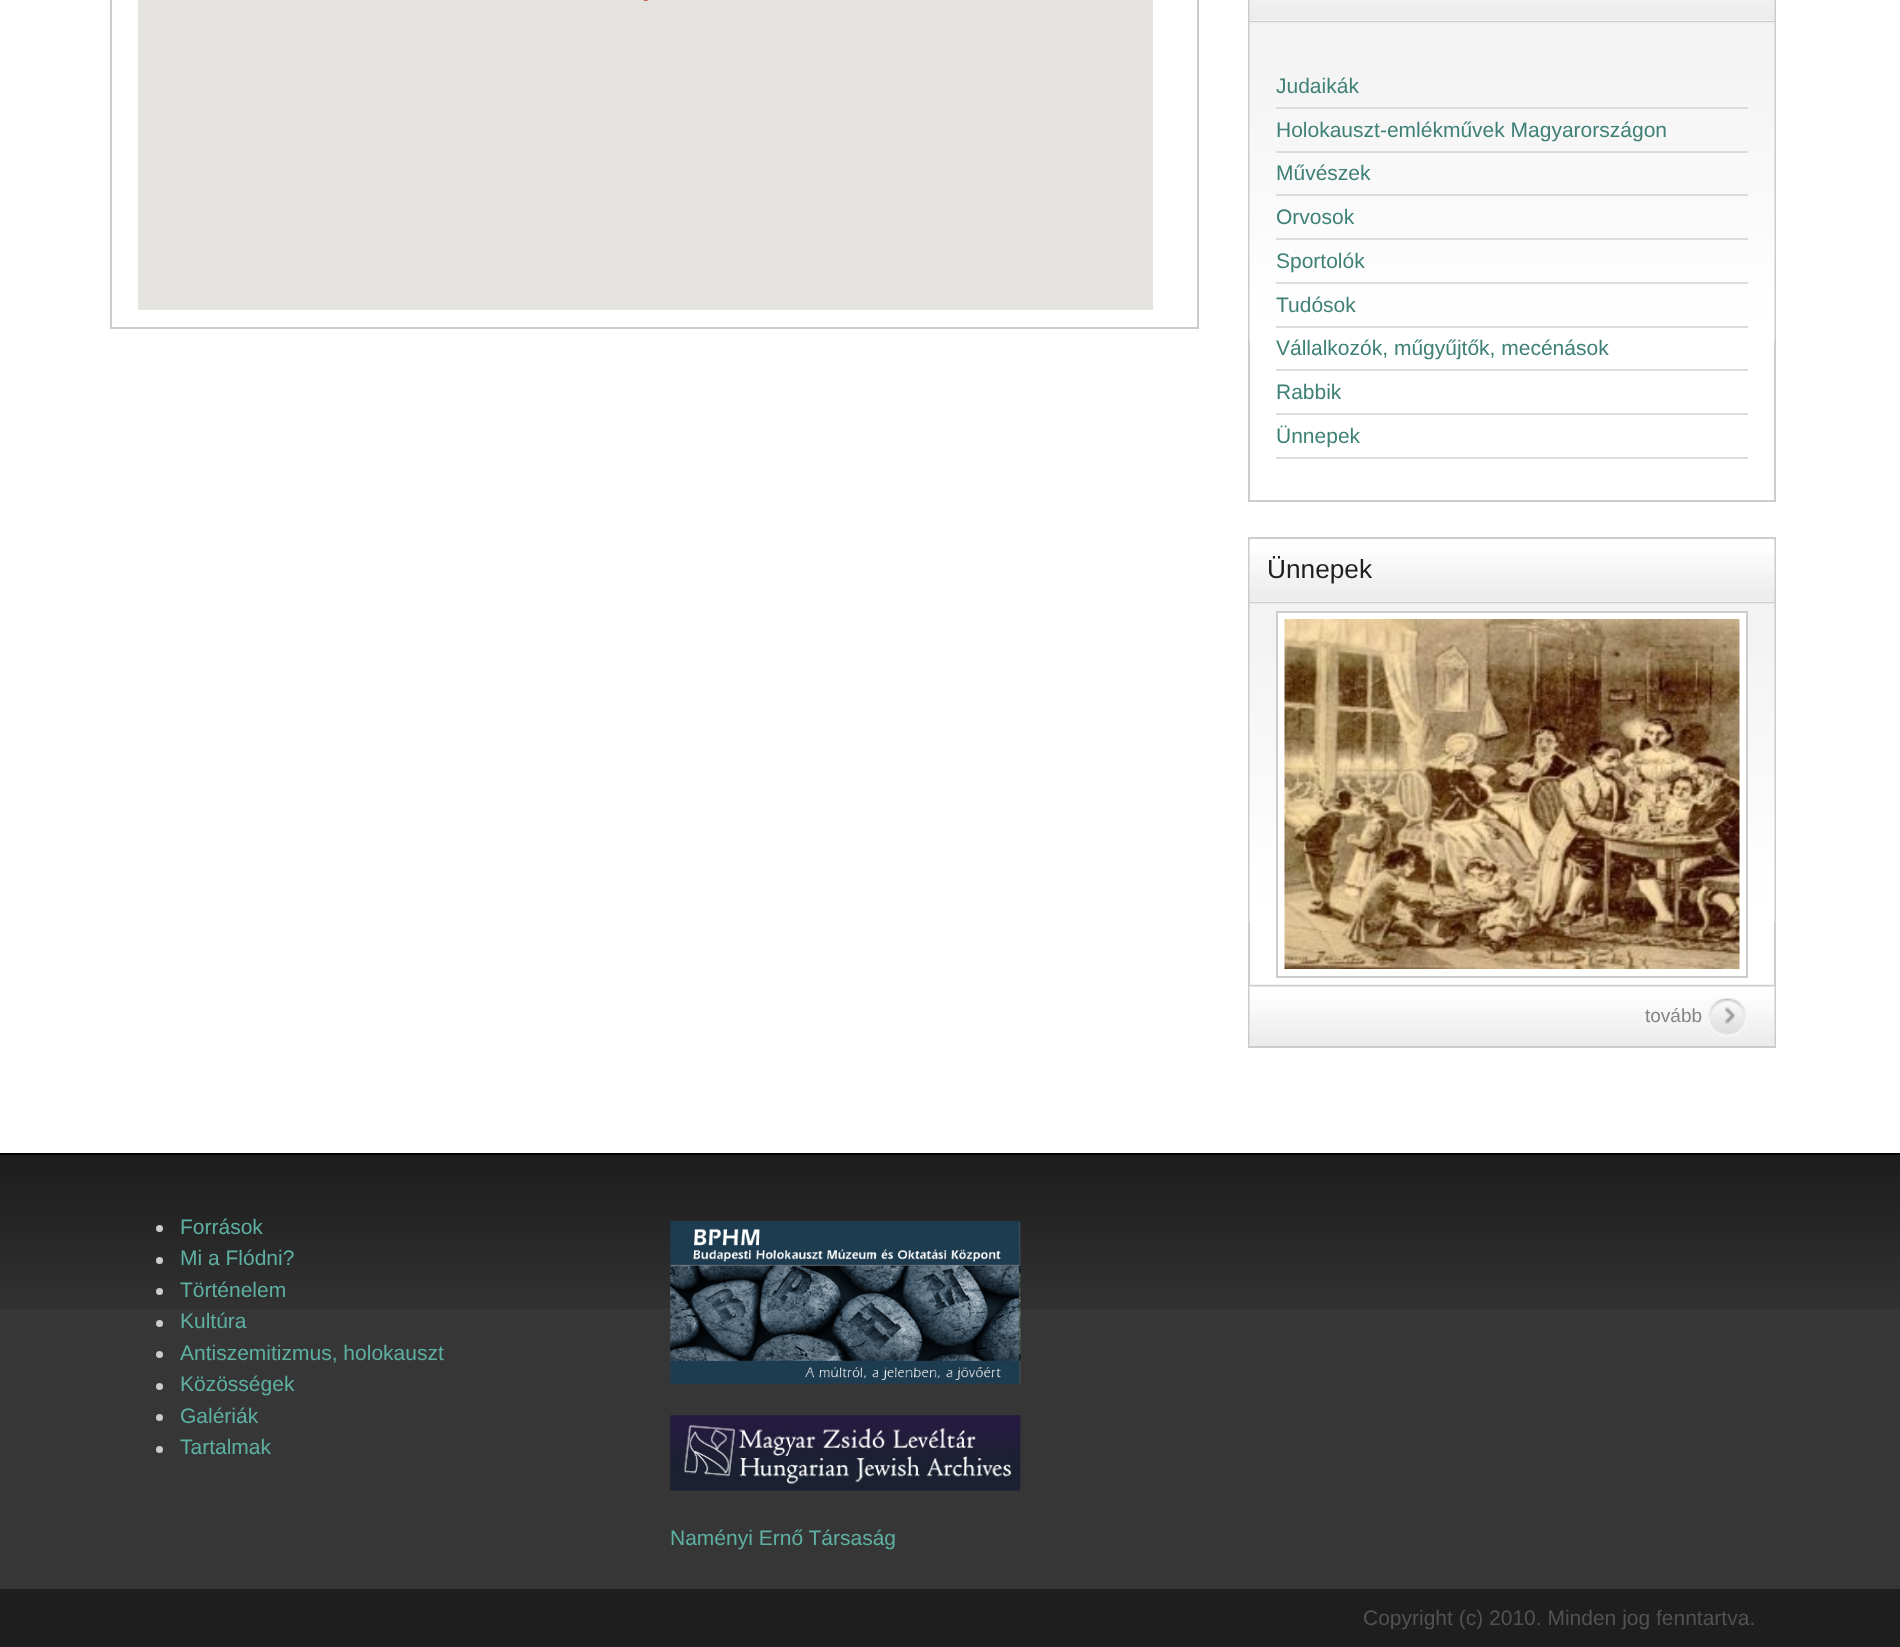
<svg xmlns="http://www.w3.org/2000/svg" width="1900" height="1647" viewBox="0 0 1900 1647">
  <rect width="100%" height="100%" fill="#ffffff"/>
  <rect x="111" y="-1" width="1087" height="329" fill="none" stroke="#cccccc" stroke-width="2"/>
  <rect x="138" y="0" width="1015" height="310" fill="#e5e3df"/>
  <image x="643" y="0" width="5" height="1" href="img1.png"/>
  <rect x="1249" y="-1" width="526" height="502" fill="none" stroke="#cccccc" stroke-width="2"/>
  <image x="1249" y="0" width="526" height="21" href="img2.png"/>
  <rect x="1250" y="21" width="525" height="2" fill="#cccccc"/>
  <image x="1249" y="22" width="526" height="319" href="img3.png"/>
  <rect x="1276" y="107" width="472" height="2" fill="#dcdcdc"/>
  <text x="1276" y="93" font-family="Liberation Sans" font-size="21" fill="#3f8077">Judaikák</text>
  <rect x="1276" y="151" width="472" height="2" fill="#dcdcdc"/>
  <text x="1276" y="137" font-family="Liberation Sans" font-size="21" fill="#3f8077">Holokauszt-emlékművek Magyarországon</text>
  <rect x="1276" y="194" width="472" height="2" fill="#dcdcdc"/>
  <text x="1276" y="180" font-family="Liberation Sans" font-size="21" fill="#3f8077">Művészek</text>
  <rect x="1276" y="238" width="472" height="2" fill="#dcdcdc"/>
  <text x="1276" y="224" font-family="Liberation Sans" font-size="21" fill="#3f8077">Orvosok</text>
  <rect x="1276" y="282" width="472" height="2" fill="#dcdcdc"/>
  <text x="1276" y="268" font-family="Liberation Sans" font-size="21" fill="#3f8077">Sportolók</text>
  <rect x="1276" y="326" width="472" height="2" fill="#dcdcdc"/>
  <text x="1276" y="312" font-family="Liberation Sans" font-size="21" fill="#3f8077">Tudósok</text>
  <rect x="1276" y="369" width="472" height="2" fill="#dcdcdc"/>
  <text x="1276" y="355" font-family="Liberation Sans" font-size="21" fill="#3f8077">Vállalkozók, műgyűjtők, mecénások</text>
  <rect x="1276" y="413" width="472" height="2" fill="#dcdcdc"/>
  <text x="1276" y="399" font-family="Liberation Sans" font-size="21" fill="#3f8077">Rabbik</text>
  <rect x="1276" y="457" width="472" height="2" fill="#dcdcdc"/>
  <text x="1276" y="443" font-family="Liberation Sans" font-size="21" fill="#3f8077">Ünnepek</text>
  <rect x="1249" y="538" width="526" height="509" fill="none" stroke="#cccccc" stroke-width="2"/>
  <image x="1249" y="540" width="526" height="62" href="img4.png"/>
  <rect x="1250" y="602" width="525" height="2" fill="#cccccc"/>
  <text x="1267" y="578" font-family="Liberation Sans" font-size="26.25" fill="#202020">Ünnepek</text>
  <image x="1249" y="603" width="526" height="319" href="img3.png"/>
  <rect x="1278" y="613" width="468" height="229" fill="#ffffff"/>
  <rect x="1277" y="612" width="470" height="365" fill="none" stroke="#cccccc" stroke-width="2"/>
  <image x="1284" y="619" width="456" height="350" href="img5.png"/>
  <image x="1249" y="984" width="526" height="62" href="img6.png"/>
  <image x="1708" y="998" width="40" height="39" href="img7.png"/>
  <text x="1645" y="1022" font-family="Liberation Sans" font-size="19" fill="#848484">tovább</text>
  <rect x="0" y="1309" width="1900" height="280" fill="#363636"/>
  <image x="0" y="1155" width="1900" height="154" href="img8.png"/>
  <rect x="0" y="1153" width="1900" height="2" fill="#000000"/>
  <circle cx="159.5" cy="1228.5" r="3.5" fill="#cccccc"/>
  <text x="180" y="1234" font-family="Liberation Sans" font-size="21" fill="#5eb0a3">Források</text>
  <circle cx="159.5" cy="1260.5" r="3.5" fill="#cccccc"/>
  <text x="180" y="1265" font-family="Liberation Sans" font-size="21" fill="#5eb0a3">Mi a Flódni?</text>
  <circle cx="159.5" cy="1291.5" r="3.5" fill="#cccccc"/>
  <text x="180" y="1297" font-family="Liberation Sans" font-size="21" fill="#5eb0a3">Történelem</text>
  <circle cx="159.5" cy="1323.5" r="3.5" fill="#cccccc"/>
  <text x="180" y="1328" font-family="Liberation Sans" font-size="21" fill="#5eb0a3">Kultúra</text>
  <circle cx="159.5" cy="1354.5" r="3.5" fill="#cccccc"/>
  <text x="180" y="1360" font-family="Liberation Sans" font-size="21" fill="#5eb0a3">Antiszemitizmus, holokauszt</text>
  <circle cx="159.5" cy="1386.5" r="3.5" fill="#cccccc"/>
  <text x="180" y="1391" font-family="Liberation Sans" font-size="21" fill="#5eb0a3">Közösségek</text>
  <circle cx="159.5" cy="1417.5" r="3.5" fill="#cccccc"/>
  <text x="180" y="1423" font-family="Liberation Sans" font-size="21" fill="#5eb0a3">Galériák</text>
  <circle cx="159.5" cy="1449.5" r="3.5" fill="#cccccc"/>
  <text x="180" y="1454" font-family="Liberation Sans" font-size="21" fill="#5eb0a3">Tartalmak</text>
  <image x="670" y="1221" width="351" height="163" href="img9.png"/>
  <image x="670" y="1415" width="351" height="76" href="img10.png"/>
  <text x="670" y="1545" font-family="Liberation Sans" font-size="21" fill="#5eb0a3">Naményi Ernő Társaság</text>
  <rect x="0" y="1589" width="1900" height="58" fill="#1e1e1e"/>
  <text x="1363" y="1625" font-family="Liberation Sans" font-size="21" fill="#525252">Copyright (c) 2010. Minden jog fenntartva.</text>
</svg>
